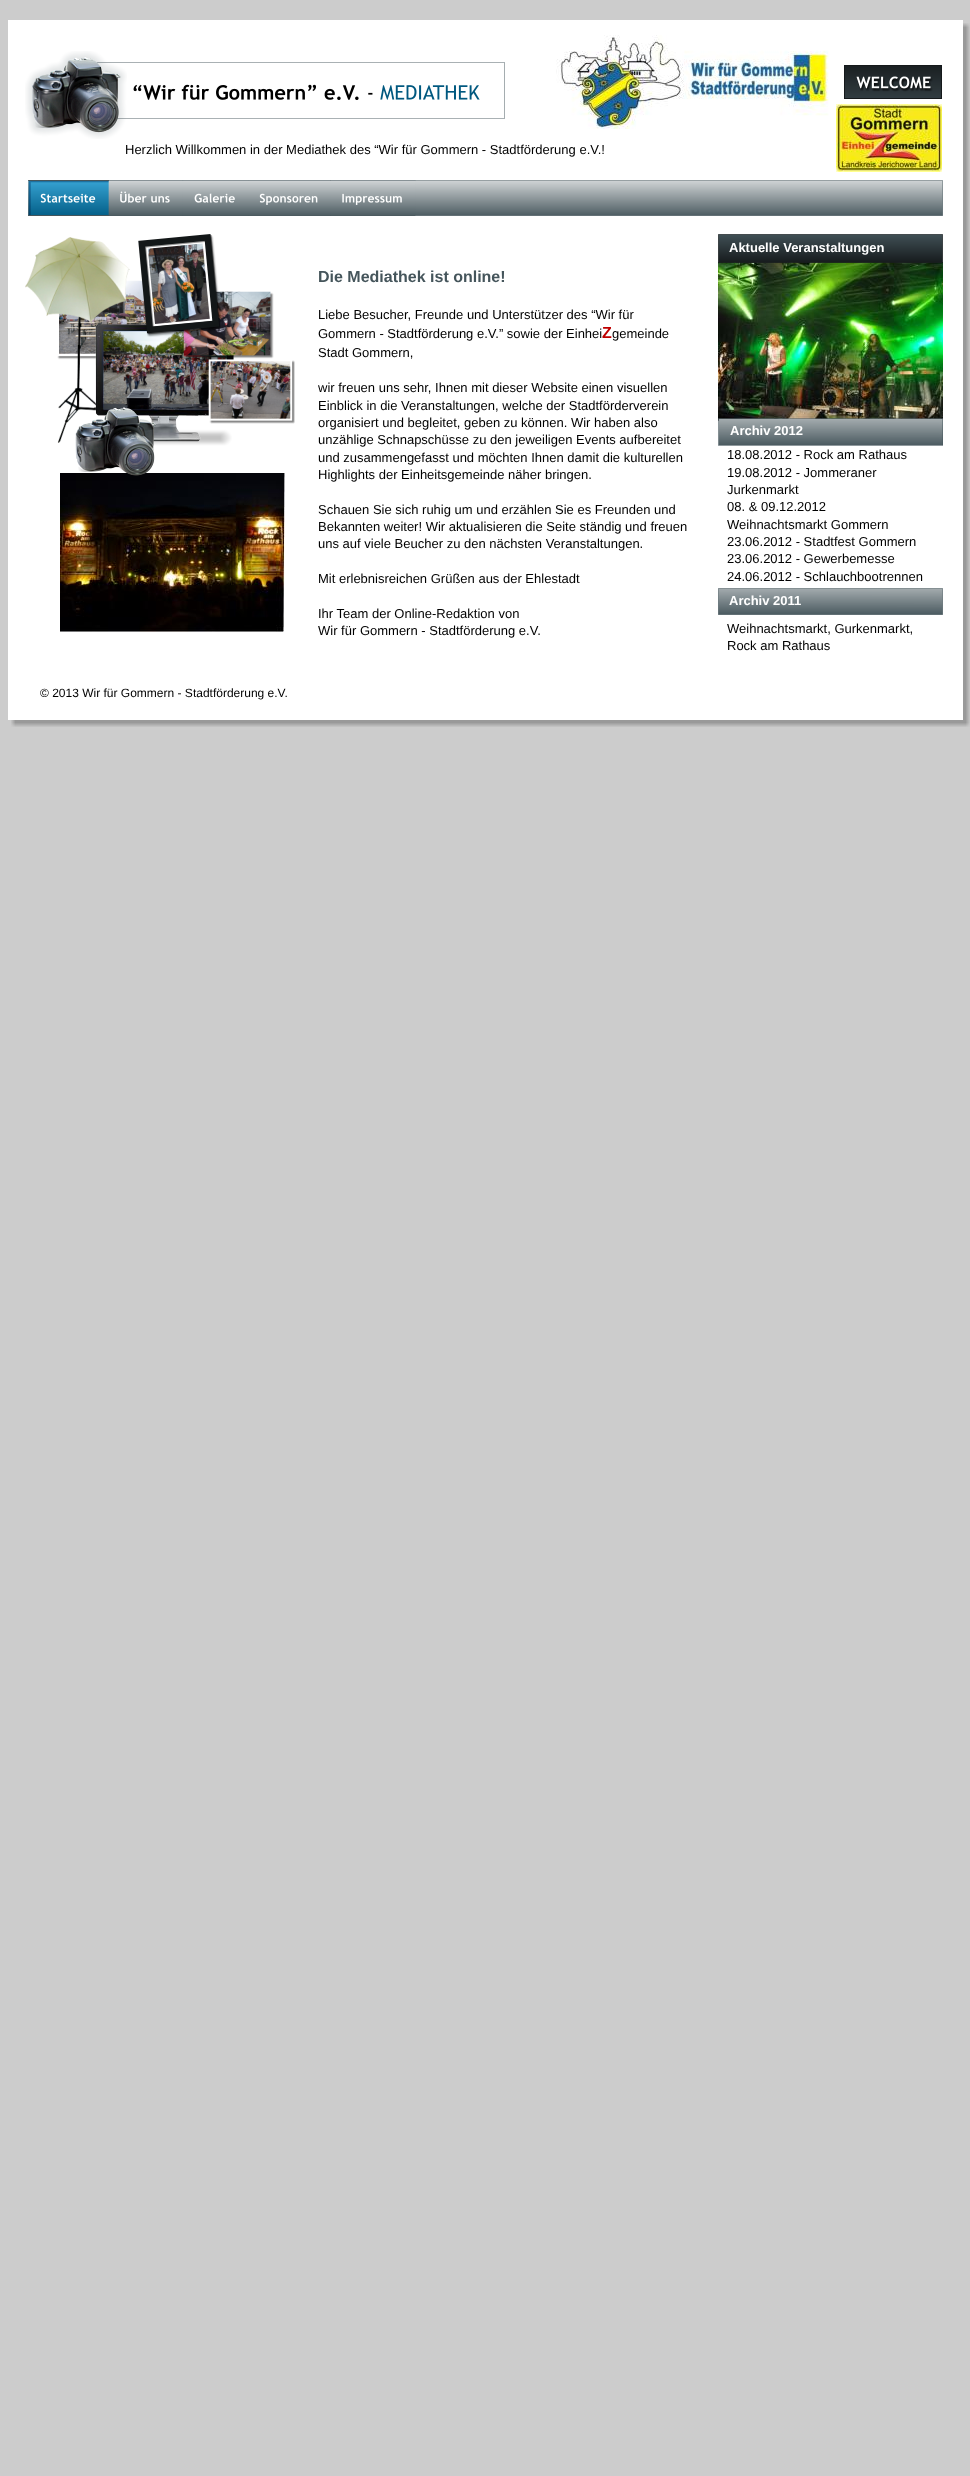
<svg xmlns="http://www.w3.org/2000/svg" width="970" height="2476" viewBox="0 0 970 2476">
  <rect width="100%" height="100%" fill="#cccccc"/>
  <image x="8" y="20" width="962" height="707" href="img1.png"/>
  <image x="96" y="62" width="409" height="57" href="img3.png"/>
  <image x="25" y="51" width="102" height="88" href="img2.png"/>
  <image x="556" y="35" width="273" height="94" href="img4.png"/>
  <image x="844" y="65" width="98" height="34" href="img5.png"/>
  <text x="125" y="154" font-family="Liberation Sans" font-size="13" fill="#000000">Herzlich Willkommen in der Mediathek des “Wir für Gommern - Stadtförderung e.V.!</text>
  <image x="836" y="104" width="106" height="68" href="img6.png"/>
  <image x="28" y="180" width="81" height="36" href="img7.png"/>
  <image x="109" y="180" width="834" height="36" href="img8.png"/>
  <image x="109" y="180" width="75" height="36" href="img9.png"/>
  <image x="182" y="180" width="67" height="36" href="img10.png"/>
  <image x="248" y="180" width="83" height="36" href="img11.png"/>
  <image x="330" y="180" width="86" height="36" href="img12.png"/>
  <image x="60" y="473" width="225" height="159" href="img17.png"/>
  <image x="25" y="234" width="270" height="242" href="img13.png"/>
  <image x="718" y="262" width="225" height="159" href="img15.png"/>
  <image x="718" y="234" width="225" height="29" href="img14.png"/>
  <text x="729" y="252" font-family="Liberation Sans" font-size="13" font-weight="bold" fill="#ffffff">Aktuelle Veranstaltungen</text>
  <text x="318" y="282" font-family="Liberation Sans" font-size="16" font-weight="bold" fill="#45555b">Die Mediathek ist online!</text>
  <text x="318" y="319" font-family="Liberation Sans" font-size="13" fill="#000000">Liebe Besucher, Freunde und Unterstützer des “Wir für</text>
  <text x="318" y="338" font-family="Liberation Sans" font-size="13" fill="#000000">Gommern - Stadtförderung e.V.” sowie der Einhei</text>
  <text x="602" y="338" font-family="Liberation Sans" font-size="16" font-weight="bold" fill="#bf0000">Z</text>
  <text x="612" y="338" font-family="Liberation Sans" font-size="13" fill="#000000">gemeinde</text>
  <text x="318" y="357" font-family="Liberation Sans" font-size="13" fill="#000000">Stadt Gommern,</text>
  <text x="318" y="392" font-family="Liberation Sans" font-size="13" fill="#000000">wir freuen uns sehr, Ihnen mit dieser Website einen visuellen</text>
  <text x="318" y="410" font-family="Liberation Sans" font-size="13" fill="#000000">Einblick in die Veranstaltungen, welche der Stadtförderverein</text>
  <text x="318" y="427" font-family="Liberation Sans" font-size="13" fill="#000000">organisiert und begleitet, geben zu können. Wir haben also</text>
  <text x="318" y="444" font-family="Liberation Sans" font-size="13" fill="#000000">unzählige Schnapschüsse zu den jeweiligen Events aufbereitet</text>
  <text x="318" y="462" font-family="Liberation Sans" font-size="13" fill="#000000">und zusammengefasst und möchten Ihnen damit die kulturellen</text>
  <text x="318" y="479" font-family="Liberation Sans" font-size="13" fill="#000000">Highlights der Einheitsgemeinde näher bringen.</text>
  <text x="318" y="514" font-family="Liberation Sans" font-size="13" fill="#000000">Schauen Sie sich ruhig um und erzählen Sie es Freunden und</text>
  <text x="318" y="531" font-family="Liberation Sans" font-size="13" fill="#000000">Bekannten weiter! Wir aktualisieren die Seite ständig und freuen</text>
  <text x="318" y="548" font-family="Liberation Sans" font-size="13" fill="#000000">uns auf viele Beucher zu den nächsten Veranstaltungen.</text>
  <text x="318" y="583" font-family="Liberation Sans" font-size="13" fill="#000000">Mit erlebnisreichen Grüßen aus der Ehlestadt</text>
  <text x="318" y="618" font-family="Liberation Sans" font-size="13" fill="#000000">Ihr Team der Online-Redaktion von</text>
  <text x="318" y="635" font-family="Liberation Sans" font-size="13" fill="#000000">Wir für Gommern - Stadtförderung e.V.</text>
  <image x="718" y="418" width="225" height="28" href="img16.png"/>
  <text x="730" y="435" font-family="Liberation Sans" font-size="13" font-weight="bold" fill="#ffffff">Archiv 2012</text>
  <text x="727" y="459" font-family="Liberation Sans" font-size="13" fill="#000000">18.08.2012 - Rock am Rathaus</text>
  <text x="727" y="477" font-family="Liberation Sans" font-size="13" fill="#000000">19.08.2012 - Jommeraner</text>
  <text x="727" y="494" font-family="Liberation Sans" font-size="13" fill="#000000">Jurkenmarkt</text>
  <text x="727" y="511" font-family="Liberation Sans" font-size="13" fill="#000000">08. &amp; 09.12.2012</text>
  <text x="727" y="529" font-family="Liberation Sans" font-size="13" fill="#000000">Weihnachtsmarkt Gommern</text>
  <text x="727" y="546" font-family="Liberation Sans" font-size="13" fill="#000000">23.06.2012 - Stadtfest Gommern</text>
  <text x="727" y="563" font-family="Liberation Sans" font-size="13" fill="#000000">23.06.2012 - Gewerbemesse</text>
  <text x="727" y="581" font-family="Liberation Sans" font-size="13" fill="#000000">24.06.2012 - Schlauchbootrennen</text>
  <text x="727" y="633" font-family="Liberation Sans" font-size="13" fill="#000000">Weihnachtsmarkt, Gurkenmarkt,</text>
  <text x="727" y="650" font-family="Liberation Sans" font-size="13" fill="#000000">Rock am Rathaus</text>
  <image x="718" y="588" width="225" height="27" href="img18.png"/>
  <text x="729" y="605" font-family="Liberation Sans" font-size="13" font-weight="bold" fill="#ffffff">Archiv 2011</text>
  <text x="40" y="697" font-family="Liberation Sans" font-size="12" fill="#000000">© 2013 Wir für Gommern - Stadtförderung e.V.</text>
</svg>
